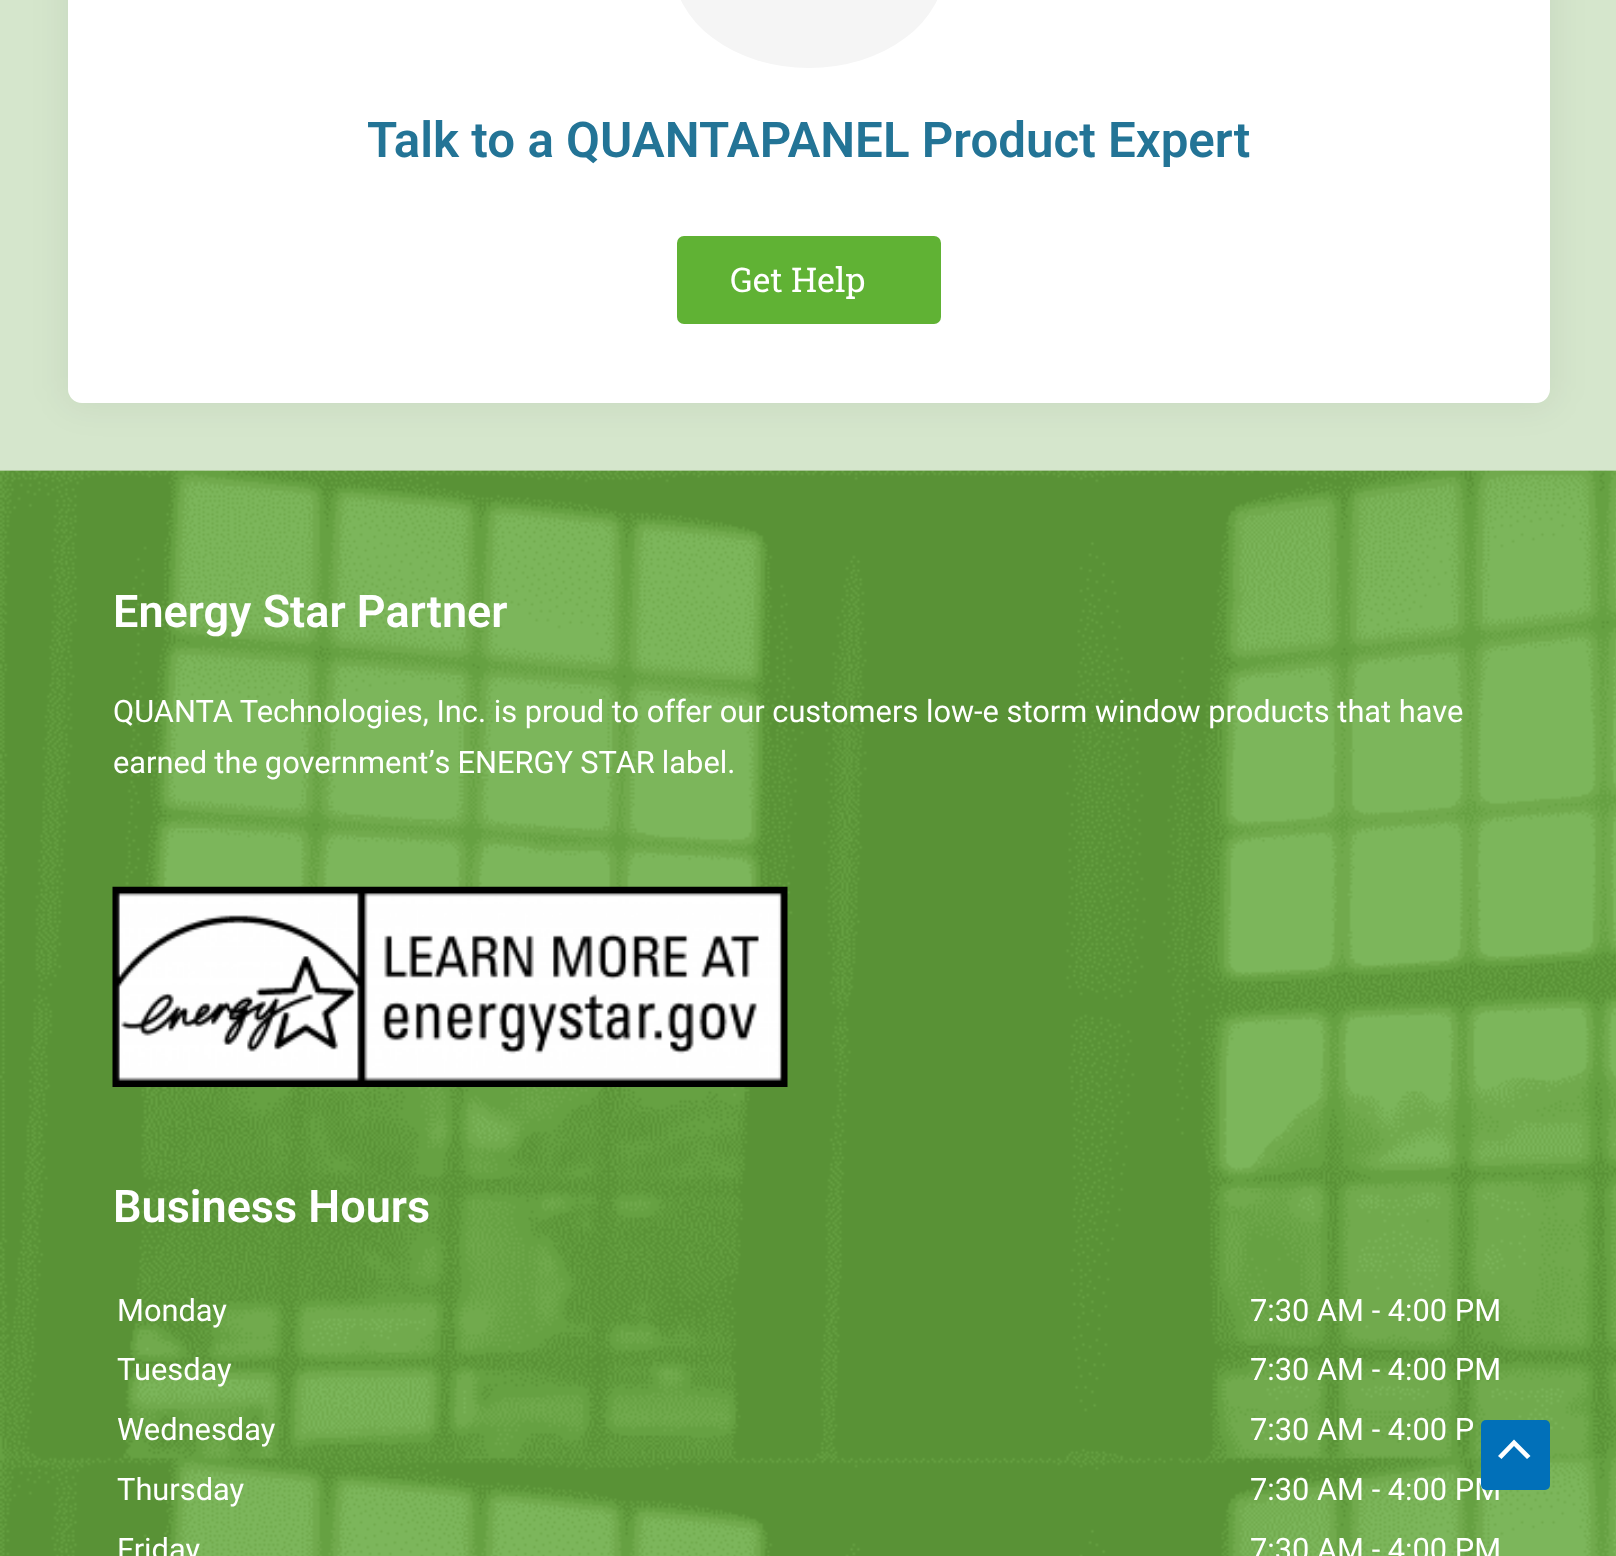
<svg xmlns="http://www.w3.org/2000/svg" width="1616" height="1556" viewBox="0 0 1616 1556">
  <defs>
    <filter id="blur1" x="-50%" y="-200%" width="200%" height="500%"><feGaussianBlur stdDeviation="17"/></filter>
  </defs>
  <rect width="100%" height="100%" fill="#f5f5f5"/>
  <rect x="0" y="0" width="1616" height="470" fill="#d5e6cc"/>
  <rect x="63" y="-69" width="1492" height="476" rx="18" fill="#000000" fill-opacity="0.06" filter="url(#blur1)"/>
  <rect x="68" y="-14" width="1482" height="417" rx="14" fill="#ffffff"/>
  <rect x="673" y="-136" width="272" height="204" rx="136" fill="#f5f5f5"/>
  <text x="367" y="157" font-family="Roboto" font-size="49.25" font-weight="600" fill="#237496">Talk to a QUANTAPANEL Product Expert</text>
  <rect x="677" y="236" width="264" height="88" rx="7" fill="#60b234"/>
  <text x="730" y="292" font-family="Roboto Slab" font-size="34" fill="#ffffff">Get Help</text>
  <image x="0" y="470" width="1616" height="1086" href="img1.png"/>
  <text x="113" y="627" font-family="Roboto" font-size="45" font-weight="600" fill="#ffffff">Energy Star Partner</text>
  <text x="113" y="722" font-family="Roboto" font-size="30.8" fill="#ffffff">QUANTA Technologies, Inc. is proud to offer our customers low-e storm window products that have</text>
  <text x="113" y="773" word-spacing="-0.5" font-family="Roboto" font-size="30.8" fill="#ffffff">earned the government’s ENERGY STAR label.</text>
  <image x="112" y="886" width="676" height="201" href="img2.png"/>
  <text x="113" y="1222" font-family="Roboto" font-size="45" font-weight="600" fill="#ffffff">Business Hours</text>
  <text x="117" y="1321" font-family="Roboto" font-size="30.8" fill="#ffffff">Monday</text>
  <text x="1250" y="1321" font-family="Roboto" font-size="30.8" fill="#ffffff">7:30 AM - 4:00 PM</text>
  <text x="117" y="1380" font-family="Roboto" font-size="30.8" fill="#ffffff">Tuesday</text>
  <text x="1250" y="1380" font-family="Roboto" font-size="30.8" fill="#ffffff">7:30 AM - 4:00 PM</text>
  <text x="117" y="1440" font-family="Roboto" font-size="30.8" fill="#ffffff">Wednesday</text>
  <text x="1250" y="1440" font-family="Roboto" font-size="30.8" fill="#ffffff">7:30 AM - 4:00 P</text>
  <text x="117" y="1500" font-family="Roboto" font-size="30.8" fill="#ffffff">Thursday</text>
  <text x="1250" y="1500" font-family="Roboto" font-size="30.8" fill="#ffffff">7:30 AM - 4:00 PM</text>
  <text x="117" y="1560" font-family="Roboto" font-size="30.8" fill="#ffffff">Friday</text>
  <text x="1250" y="1560" font-family="Roboto" font-size="30.8" fill="#ffffff">7:30 AM - 4:00 PM</text>
  <rect x="1481" y="1420" width="69" height="70" rx="5" fill="#0170b9"/>
  <path d="M1530.5 1456L1514 1439.5L1498 1456L1501.5 1459L1514 1446L1527 1459Z" fill="#ffffff"/>
</svg>
